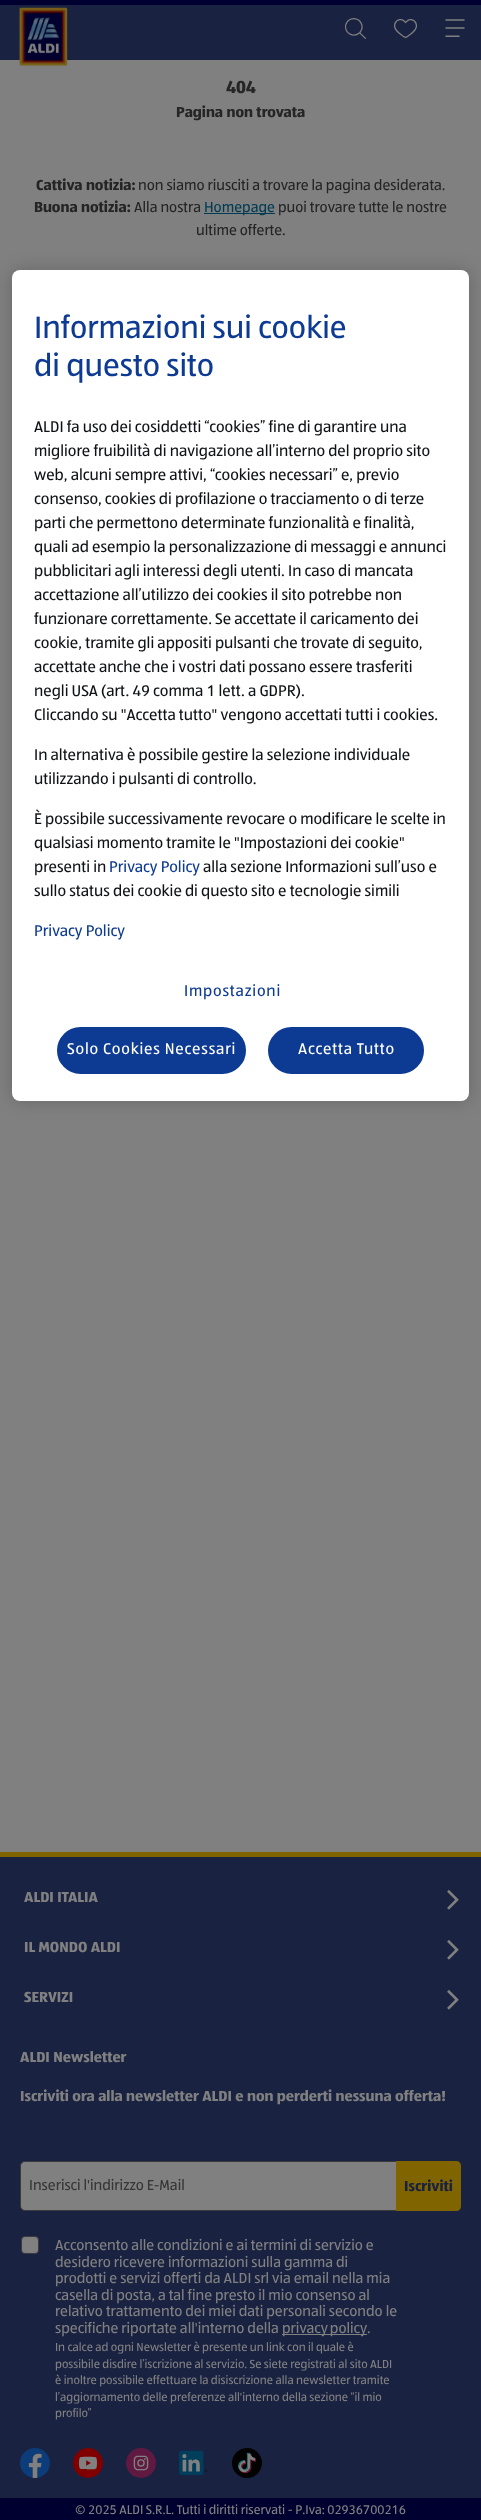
<svg xmlns="http://www.w3.org/2000/svg" width="481" height="2520" viewBox="0 0 481 2520">
  <defs>
    <filter id="blur1" x="-50%" y="-200%" width="200%" height="500%"><feGaussianBlur stdDeviation="9"/></filter>
  </defs>
  <rect width="100%" height="100%" fill="#808080"/>
  <rect x="0" y="5" width="481" height="55" fill="#1a2242"/>
  <rect x="0" y="0" width="481" height="5" fill="#000030"/>
  <image x="19" y="7" width="49" height="59" href="img1.png"/>
  <image x="345" y="18" width="21" height="21" href="img2.png"/>
  <image x="394" y="19" width="23" height="19" href="img3.png"/>
  <image x="445" y="19" width="20" height="18" href="img4.png"/>
  <text x="226" y="93" font-family="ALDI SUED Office" font-size="18" font-weight="bold" fill="#252525">404</text>
  <text x="176" y="117" font-family="ALDI SUED Office" font-size="15" font-weight="bold" fill="#252525">Pagina non trovata</text>
  <text x="36" y="190" font-family="ALDI SUED Office" font-size="15" font-weight="bold" fill="#252525">Cattiva notizia:</text>
  <text x="138" y="190" font-family="ALDI SUED Office" font-size="15" fill="#252525">non siamo riusciti a trovare la pagina desiderata.</text>
  <text x="34" y="212" font-family="ALDI SUED Office" font-size="15" font-weight="bold" fill="#252525">Buona notizia:</text>
  <text x="134" y="212" font-family="ALDI SUED Office" font-size="15" fill="#252525">Alla nostra</text>
  <rect x="204" y="213" width="71" height="1" fill="#003b54"/>
  <text x="204" y="212" font-family="ALDI SUED Office" font-size="15" fill="#003b54">Homepage</text>
  <text x="278" y="212" font-family="ALDI SUED Office" font-size="15" fill="#252525">puoi trovare tutte le nostre</text>
  <text x="196" y="235" font-family="ALDI SUED Office" font-size="15" fill="#252525">ultime offerte.</text>
  <rect x="12" y="270" width="457" height="831" rx="8" fill="#000000" fill-opacity="0.2" filter="url(#blur1)"/>
  <rect x="12" y="270" width="457" height="831" rx="8" fill="#ffffff"/>
  <text x="34" y="338" font-family="ALDI SUED Office" font-size="32" fill="#0d3a93">Informazioni sui cookie</text>
  <text x="34" y="376" font-family="ALDI SUED Office" font-size="32" fill="#0d3a93">di questo sito</text>
  <text x="34" y="432" font-family="ALDI SUED Office" font-size="16" fill="#101316">ALDI fa uso dei cosiddetti “cookies” fine di garantire una</text>
  <text x="34" y="456" font-family="ALDI SUED Office" font-size="16" fill="#101316">migliore fruibilità di navigazione all’interno del proprio sito</text>
  <text x="34" y="480" font-family="ALDI SUED Office" font-size="16" fill="#101316">web, alcuni sempre attivi, “cookies necessari” e, previo</text>
  <text x="34" y="504" font-family="ALDI SUED Office" font-size="16" fill="#101316">consenso, cookies di profilazione o tracciamento o di terze</text>
  <text x="34" y="528" font-family="ALDI SUED Office" font-size="16" fill="#101316">parti che permettono determinate funzionalità e finalità,</text>
  <text x="34" y="552" font-family="ALDI SUED Office" font-size="16" fill="#101316">quali ad esempio la personalizzazione di messaggi e annunci</text>
  <text x="34" y="576" font-family="ALDI SUED Office" font-size="16" fill="#101316">pubblicitari agli interessi degli utenti. In caso di mancata</text>
  <text x="34" y="600" font-family="ALDI SUED Office" font-size="16" fill="#101316">accettazione all’utilizzo dei cookies il sito potrebbe non</text>
  <text x="34" y="624" font-family="ALDI SUED Office" font-size="16" fill="#101316">funzionare correttamente. Se accettate il caricamento dei</text>
  <text x="34" y="648" font-family="ALDI SUED Office" font-size="16" fill="#101316">cookie, tramite gli appositi pulsanti che trovate di seguito,</text>
  <text x="34" y="672" font-family="ALDI SUED Office" font-size="16" fill="#101316">accettate anche che i vostri dati possano essere trasferiti</text>
  <text x="34" y="696" font-family="ALDI SUED Office" font-size="16" fill="#101316">negli USA (art. 49 comma 1 lett. a GDPR).</text>
  <text x="34" y="720" font-family="ALDI SUED Office" font-size="16" fill="#101316">Cliccando su "Accetta tutto" vengono accettati tutti i cookies.</text>
  <text x="34" y="760" font-family="ALDI SUED Office" font-size="16" fill="#101316">In alternativa è possibile gestire la selezione individuale</text>
  <text x="34" y="784" font-family="ALDI SUED Office" font-size="16" fill="#101316">utilizzando i pulsanti di controllo.</text>
  <text x="34" y="824" font-family="ALDI SUED Office" font-size="16" fill="#101316">È possibile successivamente revocare o modificare le scelte in</text>
  <text x="34" y="848" font-family="ALDI SUED Office" font-size="16" fill="#101316">qualsiasi momento tramite le "Impostazioni dei cookie"</text>
  <text x="34" y="872" font-family="ALDI SUED Office" font-size="16" fill="#101316">presenti in</text>
  <text x="109" y="872" font-family="ALDI SUED Office" font-size="16" fill="#0d3a93">Privacy Policy</text>
  <text x="203" y="872" font-family="ALDI SUED Office" font-size="16" fill="#101316">alla sezione Informazioni sull’uso e</text>
  <text x="34" y="896" font-family="ALDI SUED Office" font-size="16" fill="#101316">sullo status dei cookie di questo sito e tecnologie simili</text>
  <text x="34" y="936" font-family="ALDI SUED Office" font-size="16" fill="#0d3a93">Privacy Policy</text>
  <text x="184" y="996" font-family="ALDI SUED Office" font-size="16" letter-spacing="0.8" fill="#0d3a93">Impostazioni</text>
  <rect x="56" y="1026" width="191" height="49" rx="24.5" fill="#0d3a93" stroke="#ffffff" stroke-width="2"/>
  <text x="67" y="1054" font-family="ALDI SUED Office" font-size="16" letter-spacing="0.8" fill="#ffffff">Solo Cookies Necessari</text>
  <rect x="267" y="1026" width="158" height="49" rx="24.5" fill="#0d3a93" stroke="#ffffff" stroke-width="2"/>
  <text x="298" y="1054" font-family="ALDI SUED Office" font-size="16" letter-spacing="0.8" fill="#ffffff">Accetta Tutto</text>
  <rect x="0" y="1857" width="481" height="641" fill="#1a2242"/>
  <rect x="0" y="1852" width="481" height="5" fill="#806400"/>
  <text x="24" y="1902" font-family="ALDI SUED Office" font-size="15" font-weight="bold" fill="#808080">ALDI ITALIA</text>
  <image x="447" y="1890" width="12" height="20" href="img5.png"/>
  <text x="24" y="1952" font-family="ALDI SUED Office" font-size="15" font-weight="bold" fill="#808080">IL MONDO ALDI</text>
  <image x="447" y="1940" width="12" height="20" href="img5.png"/>
  <text x="24" y="2002" font-family="ALDI SUED Office" font-size="15" font-weight="bold" fill="#808080">SERVIZI</text>
  <image x="447" y="1990" width="12" height="20" href="img5.png"/>
  <text x="20" y="2062" font-family="ALDI SUED Office" font-size="15" font-weight="bold" fill="#808080">ALDI Newsletter</text>
  <text x="20" y="2101" font-family="ALDI SUED Office" font-size="15" font-weight="bold" fill="#808080">Iscriviti ora alla newsletter ALDI e non perderti nessuna offerta!</text>
  <path d="M25 2161.5H396.5V2210.5H25C22.5 2210.5 20.5 2208.5 20.5 2206V2166C20.5 2163.5 22.5 2161.5 25 2161.5Z" fill="#808080" stroke="#3a3a3a"/>
  <text x="29" y="2190" font-family="ALDI SUED Office" font-size="15" fill="#363636">Inserisci l'indirizzo E-Mail</text>
  <rect x="21.5" y="2236.5" width="17" height="17" rx="3.5" fill="#808080" stroke="#3a3a3a"/>
  <text x="55" y="2250" font-family="ALDI SUED Office" font-size="15" fill="#808080">Acconsento alle condizioni e ai termini di servizio e</text>
  <text x="55" y="2267" font-family="ALDI SUED Office" font-size="15" fill="#808080">desidero ricevere informazioni sulla gamma di</text>
  <text x="55" y="2283" font-family="ALDI SUED Office" font-size="15" fill="#808080">prodotti e servizi offerti da ALDI srl via email nella mia</text>
  <text x="55" y="2300" font-family="ALDI SUED Office" font-size="15" fill="#808080">casella di posta, a tal fine presto il mio consenso al</text>
  <text x="55" y="2316" font-family="ALDI SUED Office" font-size="15" fill="#808080">relativo trattamento dei miei dati personali secondo le</text>
  <text x="55" y="2333" font-family="ALDI SUED Office" font-size="15" fill="#808080">specifiche riportate all'interno della</text>
  <rect x="282" y="2334" width="85" height="1" fill="#808080"/>
  <text x="282" y="2333" word-spacing="-1" font-family="ALDI SUED Office" font-size="15" fill="#808080">privacy policy</text>
  <text x="367" y="2333" font-family="ALDI SUED Office" font-size="15" fill="#808080">.</text>
  <text x="55" y="2351" font-family="ALDI SUED Office" font-size="12" fill="#808080">In calce ad ogni Newsletter è presente un link con il quale è</text>
  <text x="55" y="2368" font-family="ALDI SUED Office" font-size="12" fill="#808080">possibile disdire l’iscrizione al servizio. Se siete registrati al sito ALDI</text>
  <text x="55" y="2384" font-family="ALDI SUED Office" font-size="12" fill="#808080">è inoltre possibile effettuare la disiscrizione alla newsletter tramite</text>
  <text x="55" y="2401" font-family="ALDI SUED Office" font-size="12" fill="#808080">l’aggiornamento delle preferenze all'interno della sezione “il mio</text>
  <text x="55" y="2417" font-family="ALDI SUED Office" font-size="12" fill="#808080">profilo”</text>
  <path d="M396 2161H456C459 2161 461 2163 461 2166V2206C461 2209 459 2211 456 2211H396Z" fill="#806400"/>
  <text x="404" y="2191" font-family="ALDI SUED Office" font-size="15" font-weight="bold" fill="#1a2242">Iscriviti</text>
  <image x="20" y="2448" width="30" height="30" href="img6.png"/>
  <image x="73" y="2448" width="30" height="30" href="img7.png"/>
  <image x="126" y="2448" width="30" height="30" href="img8.png"/>
  <image x="179" y="2450" width="29" height="25" href="img9.png"/>
  <image x="232" y="2448" width="30" height="30" href="img10.png"/>
  <rect x="0" y="2498" width="481" height="22" fill="#000030"/>
  <text x="75" y="2514" font-family="ALDI SUED Office" font-size="13" fill="#808080">© 2025 ALDI S.R.L. Tutti i diritti riservati - P.Iva: 02936700216</text>
</svg>
